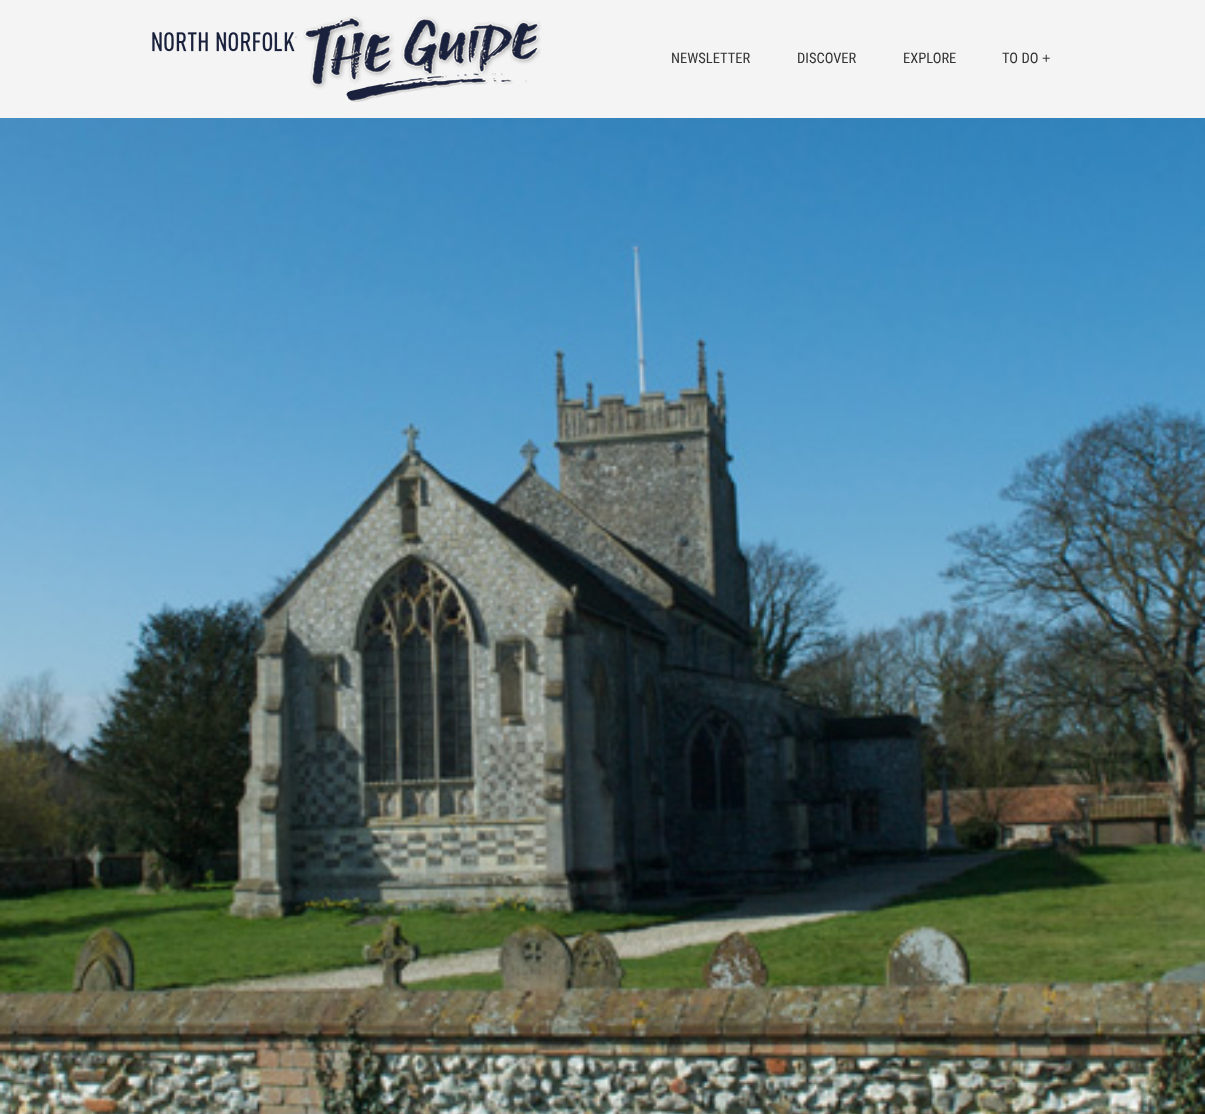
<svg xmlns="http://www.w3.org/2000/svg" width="1205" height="1114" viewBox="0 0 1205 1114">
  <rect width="100%" height="100%" fill="#ffffff"/>
  <rect x="0" y="0" width="1205" height="118" fill="#f4f4f4"/>
  <image x="152" y="16" width="389" height="86" href="img1.png"/>
  <text x="671" y="63" font-family="Roboto Condensed" font-size="14.5" fill="#333333">NEWSLETTER</text>
  <text x="797" y="63" font-family="Roboto Condensed" font-size="14.5" fill="#333333">DISCOVER</text>
  <text x="903" y="63" font-family="Roboto Condensed" font-size="14.5" fill="#333333">EXPLORE</text>
  <text x="1002" y="63" font-family="Roboto Condensed" font-size="14.5" fill="#333333">TO DO</text>
  <text x="1042" y="63" font-family="Liberation Sans" font-size="14.5" fill="#333333">+</text>
  <image x="0" y="118" width="1205" height="996" href="img2.png"/>
</svg>
